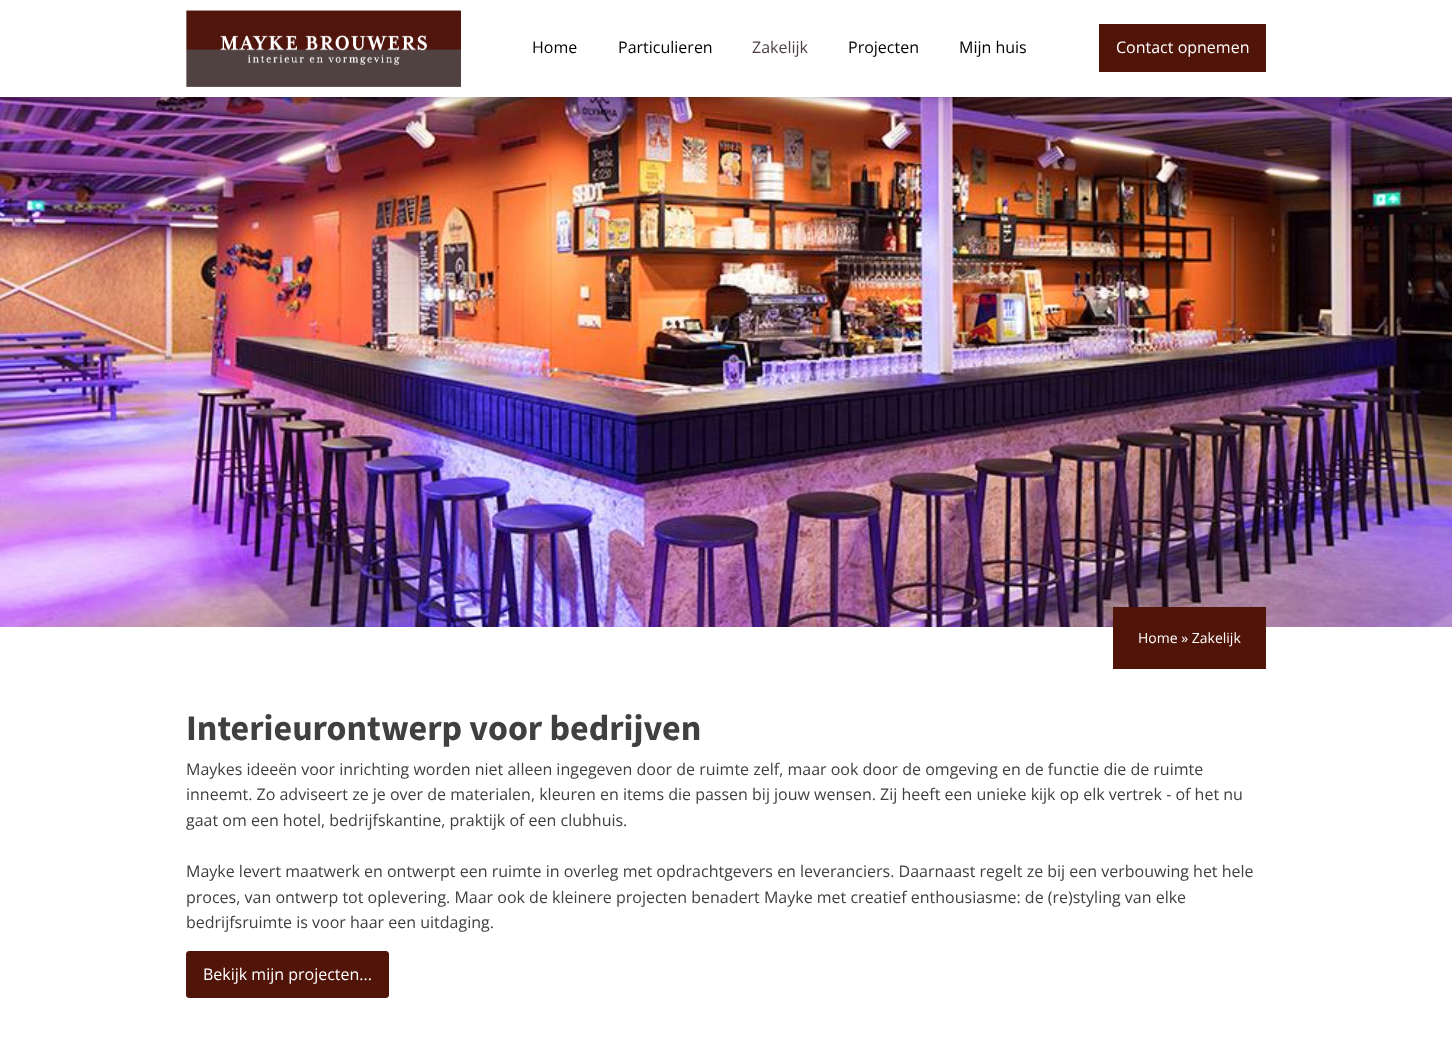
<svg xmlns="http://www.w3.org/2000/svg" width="1452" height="1061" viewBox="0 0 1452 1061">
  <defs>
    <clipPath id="clip1"><rect x="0" y="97" width="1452" height="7"/></clipPath>
    <filter id="blur1" x="-50%" y="-200%" width="200%" height="500%"><feGaussianBlur stdDeviation="5"/></filter>
  </defs>
  <rect width="100%" height="100%" fill="#ffffff"/>
  <image x="0" y="97" width="1452" height="530" href="img2.png"/>
  <g clip-path="url(#clip1)">
    <rect x="0" y="0" width="1452" height="97" fill="#000000" fill-opacity="0.3" filter="url(#blur1)"/>
  </g>
  <image x="186" y="10" width="275" height="77" href="img1.png"/>
  <text x="532" y="53" font-family="Open Sans" font-size="16" fill="#000000">Home</text>
  <text x="618" y="53" font-family="Open Sans" font-size="16" fill="#000000">Particulieren</text>
  <text x="752" y="53" font-family="Open Sans" font-size="16" fill="#504141">Zakelijk</text>
  <text x="848" y="53" font-family="Open Sans" font-size="16" fill="#000000">Projecten</text>
  <text x="959" y="53" font-family="Open Sans" font-size="16" fill="#000000">Mijn huis</text>
  <rect x="1099" y="24" width="167" height="48" fill="#511409"/>
  <text x="1116" y="53" font-family="Open Sans" font-size="16" fill="#ffffff">Contact opnemen</text>
  <rect x="1113" y="607" width="153" height="62" fill="#511409"/>
  <text x="1138" y="643" font-family="Open Sans" font-size="14" fill="#ffffff">Home » Zakelijk</text>
  <text x="186" y="740" font-family="Source Sans Pro" font-size="36" font-weight="bold" fill="#404040">Interieurontwerp voor bedrijven</text>
  <text x="186" y="775" font-family="Open Sans" font-size="16" fill="#404040">Maykes ideeën voor inrichting worden niet alleen ingegeven door de ruimte zelf, maar ook door de omgeving en de functie die de ruimte</text>
  <text x="186" y="800" font-family="Open Sans" font-size="16" fill="#404040">inneemt. Zo adviseert ze je over de materialen, kleuren en items die passen bij jouw wensen. Zij heeft een unieke kijk op elk vertrek - of het nu</text>
  <text x="186" y="826" font-family="Open Sans" font-size="16" fill="#404040">gaat om een hotel, bedrijfskantine, praktijk of een clubhuis.</text>
  <text x="186" y="877" font-family="Open Sans" font-size="16" fill="#404040">Mayke levert maatwerk en ontwerpt een ruimte in overleg met opdrachtgevers en leveranciers. Daarnaast regelt ze bij een verbouwing het hele</text>
  <text x="186" y="903" font-family="Open Sans" font-size="16" fill="#404040">proces, van ontwerp tot oplevering. Maar ook de kleinere projecten benadert Mayke met creatief enthousiasme: de (re)styling van elke</text>
  <text x="186" y="928" font-family="Open Sans" font-size="16" fill="#404040">bedrijfsruimte is voor haar een uitdaging.</text>
  <rect x="186.5" y="951.5" width="202" height="46" rx="2.5" fill="#511409" stroke="#511409"/>
  <text x="203" y="980" font-family="Open Sans" font-size="16" fill="#ffffff">Bekijk mijn projecten...</text>
</svg>
